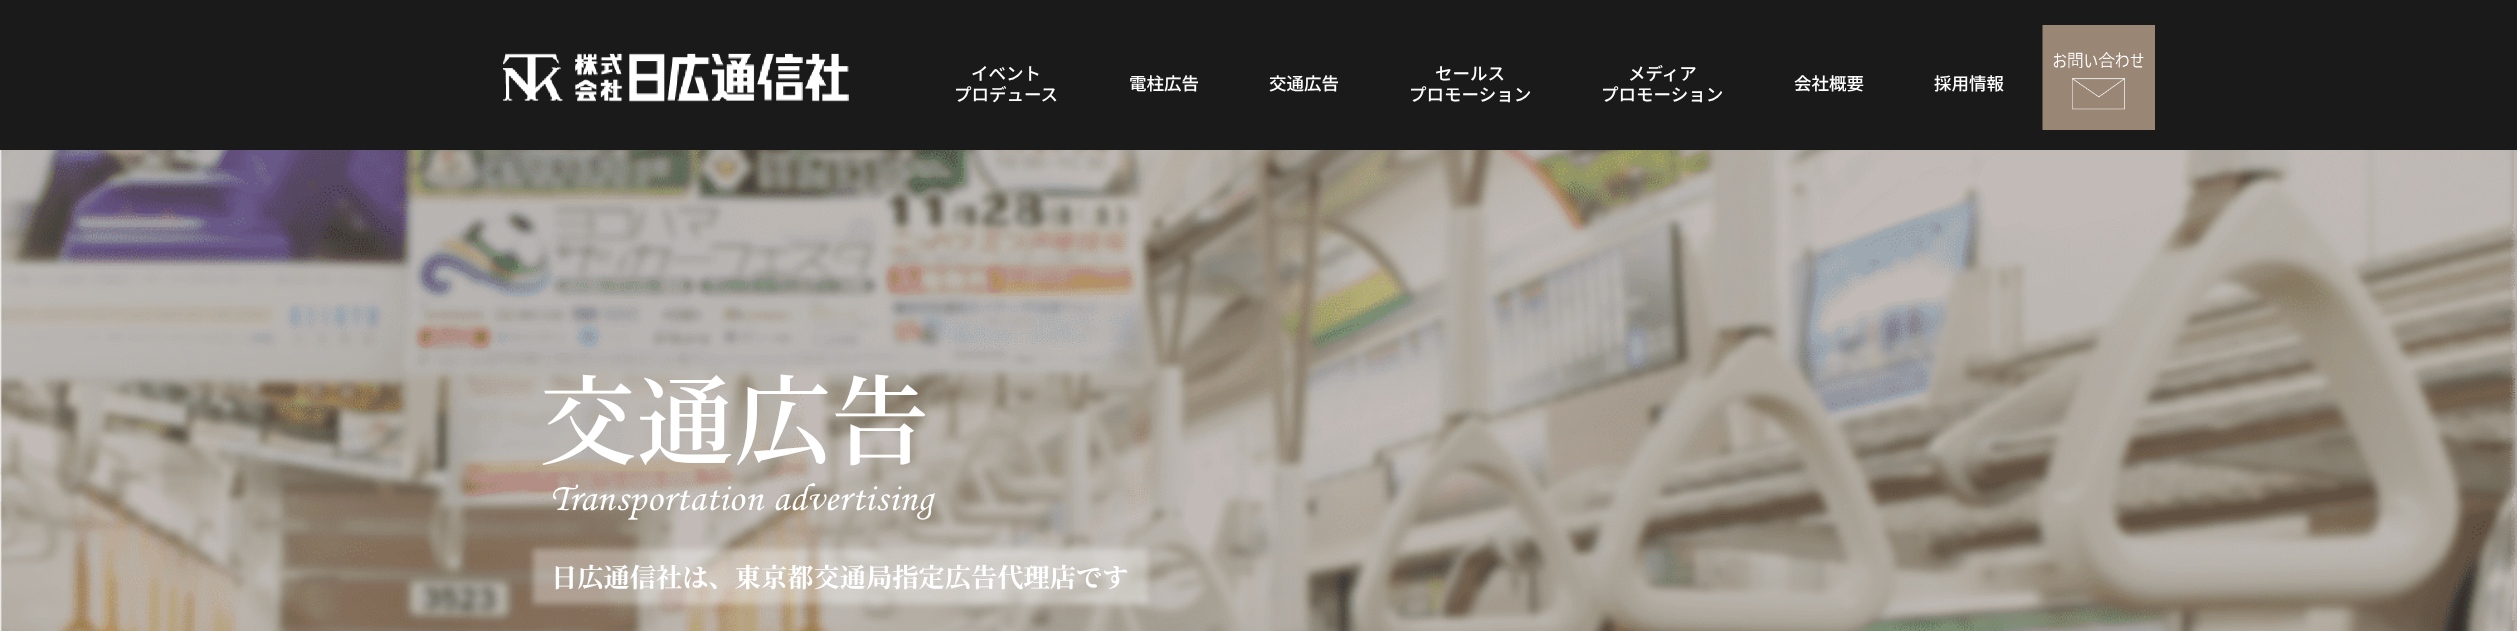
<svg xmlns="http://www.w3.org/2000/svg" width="2517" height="631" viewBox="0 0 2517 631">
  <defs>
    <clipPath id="clip1"><path d="M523 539H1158V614H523ZM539 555H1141V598H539Z" clip-rule="evenodd"/></clipPath>
    <filter id="blur1" x="-50%" y="-200%" width="200%" height="500%"><feGaussianBlur stdDeviation="3"/></filter>
  </defs>
  <rect width="100%" height="100%" fill="#ffffff"/>
  <rect x="0" y="0" width="2517" height="150" fill="#1a1a1a"/>
  <image x="503" y="53" width="346" height="49" href="img1.png"/>
  <text x="971" y="80" font-family="Noto Sans JP" font-size="17.5" font-weight="500" fill="#ffffff">イベント</text>
  <text x="954" y="101" font-family="Noto Sans JP" font-size="17.5" font-weight="500" fill="#ffffff">プロデュース</text>
  <text x="1129" y="90" font-family="Noto Sans JP" font-size="17.5" font-weight="500" fill="#ffffff">電柱広告</text>
  <text x="1269" y="90" font-family="Noto Sans JP" font-size="17.5" font-weight="500" fill="#ffffff">交通広告</text>
  <text x="1435" y="80" font-family="Noto Sans JP" font-size="17.5" font-weight="500" fill="#ffffff">セールス</text>
  <text x="1409" y="101" font-family="Noto Sans JP" font-size="17.5" font-weight="500" fill="#ffffff">プロモーション</text>
  <text x="1628" y="80" font-family="Noto Sans JP" font-size="17.5" font-weight="500" fill="#ffffff">メディア</text>
  <text x="1601" y="101" font-family="Noto Sans JP" font-size="17.5" font-weight="500" fill="#ffffff">プロモーション</text>
  <text x="1794" y="90" font-family="Noto Sans JP" font-size="17.5" font-weight="500" fill="#ffffff">会社概要</text>
  <text x="1934" y="90" font-family="Noto Sans JP" font-size="17.5" font-weight="500" fill="#ffffff">採用情報</text>
  <image x="2042" y="25" width="113" height="105" href="img2.png"/>
  <image x="0" y="150" width="2517" height="481" href="img3.png"/>
  <text x="539" y="457" font-family="Noto Serif JP" font-size="97.5" font-weight="600" fill="#ffffff">交通広告</text>
  <image x="553" y="483" width="382" height="37" href="img4.png"/>
  <g clip-path="url(#clip1)">
    <rect x="533" y="549" width="615" height="55" fill="#ffffff" fill-opacity="0.35" filter="url(#blur1)"/>
  </g>
  <rect x="539" y="555" width="602" height="43" fill="#ffffff" fill-opacity="0.35"/>
  <text x="551" y="587" font-family="Noto Serif JP" font-size="26.25" font-weight="bold" fill="#ffffff">日広通信社は、東京都交通局指定広告代理店です</text>
</svg>
